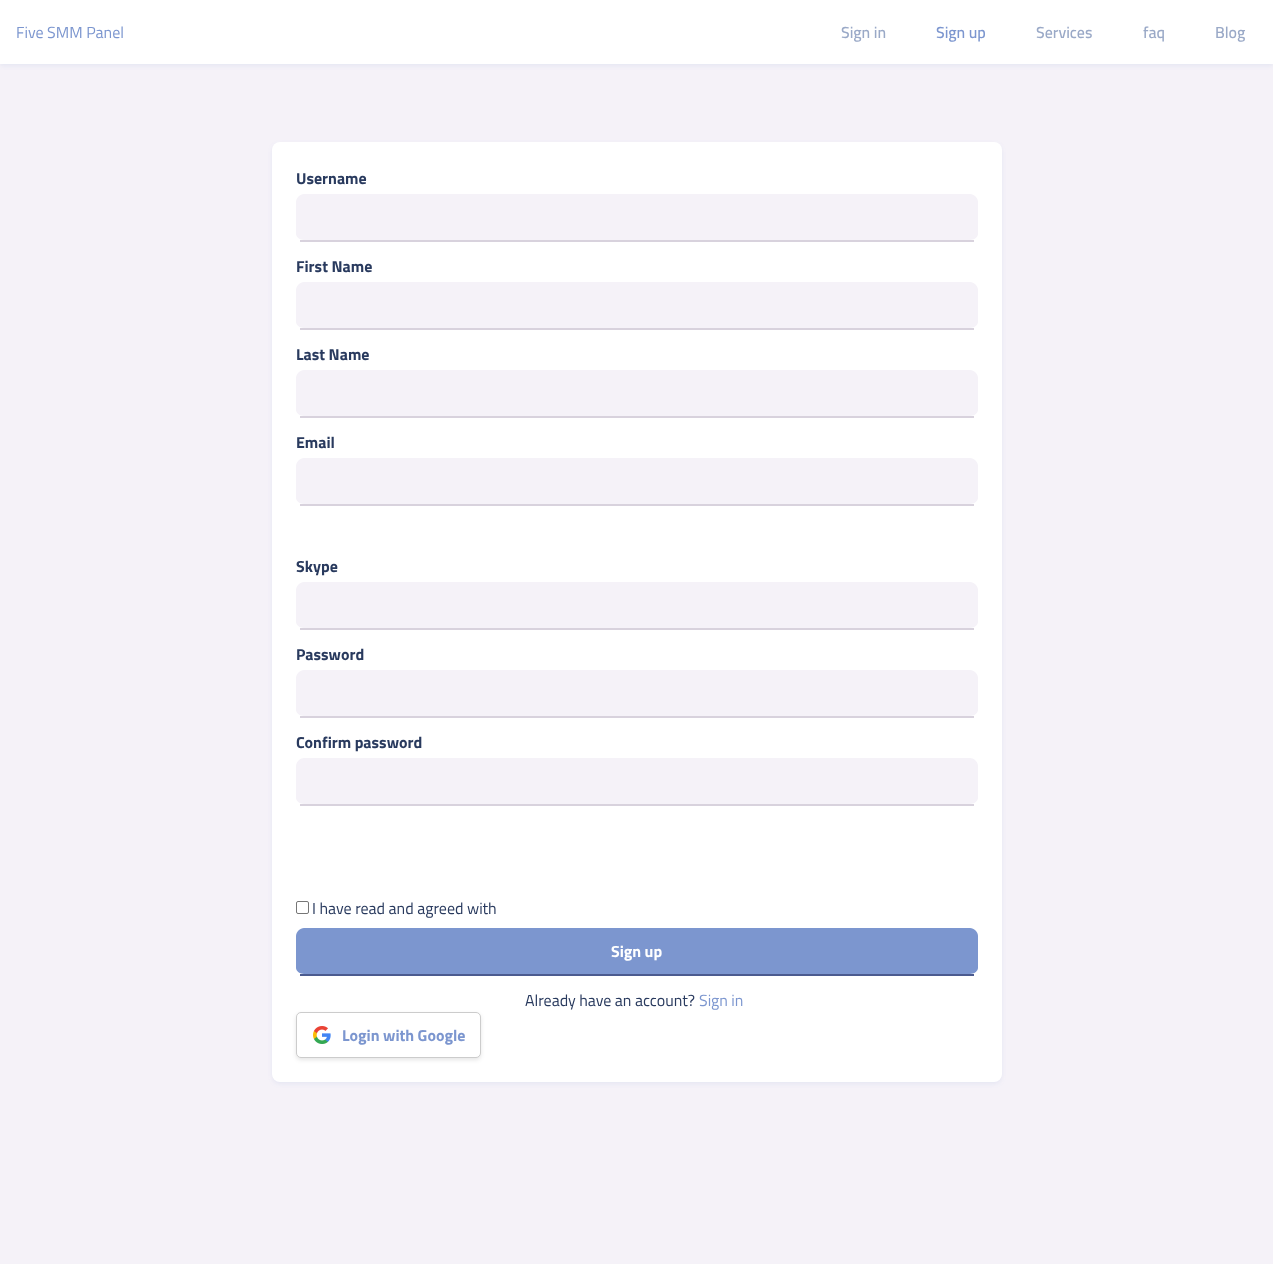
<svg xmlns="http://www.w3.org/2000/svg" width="1273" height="1264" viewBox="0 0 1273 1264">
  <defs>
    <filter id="blur1" x="-50%" y="-200%" width="200%" height="500%"><feGaussianBlur stdDeviation="2"/></filter>
  </defs>
  <rect width="100%" height="100%" fill="#f5f2f8"/>
  <rect x="0" y="2" width="1273" height="64" fill="#7c96cf" fill-opacity="0.12" filter="url(#blur1)"/>
  <rect x="0" y="0" width="1273" height="64" fill="#ffffff"/>
  <text x="16" y="38" font-family="Cairo" font-size="16" fill="#7c96cf">Five SMM Panel</text>
  <text x="841" y="38" font-family="Cairo" font-size="16" font-weight="600" fill="#9aa9c7">Sign in</text>
  <text x="936" y="38" font-family="Cairo" font-size="16" font-weight="600" fill="#7c96cf">Sign up</text>
  <text x="1036" y="38" font-family="Cairo" font-size="16" font-weight="600" fill="#9aa9c7">Services</text>
  <text x="1143" y="38" font-family="Cairo" font-size="16" font-weight="600" fill="#9aa9c7">faq</text>
  <text x="1215" y="38" font-family="Cairo" font-size="16" font-weight="600" fill="#9aa9c7">Blog</text>
  <rect x="272" y="144" width="730" height="940" rx="8" fill="#7c96cf" fill-opacity="0.12" filter="url(#blur1)"/>
  <rect x="272" y="142" width="730" height="940" rx="8" fill="#ffffff"/>
  <text x="296" y="184" font-family="Cairo" font-size="16" font-weight="bold" fill="#293a5e">Username</text>
  <path d="M304 194H970C974 194 978 198 978 202V234C978 237 974 240 970 240H304C300 240 296 237 296 234V202C296 198 300 194 304 194Z" fill="#f5f2f8"/>
  <rect x="300" y="240" width="674" height="2" fill="#d8d2dd"/>
  <text x="296" y="272" font-family="Cairo" font-size="16" font-weight="bold" fill="#293a5e">First Name</text>
  <path d="M304 282H970C974 282 978 286 978 290V322C978 325 974 328 970 328H304C300 328 296 325 296 322V290C296 286 300 282 304 282Z" fill="#f5f2f8"/>
  <rect x="300" y="328" width="674" height="2" fill="#d8d2dd"/>
  <text x="296" y="360" font-family="Cairo" font-size="16" font-weight="bold" fill="#293a5e">Last Name</text>
  <path d="M304 370H970C974 370 978 374 978 378V410C978 413 974 416 970 416H304C300 416 296 413 296 410V378C296 374 300 370 304 370Z" fill="#f5f2f8"/>
  <rect x="300" y="416" width="674" height="2" fill="#d8d2dd"/>
  <text x="296" y="448" font-family="Cairo" font-size="16" font-weight="bold" fill="#293a5e">Email</text>
  <path d="M304 458H970C974 458 978 462 978 466V498C978 501 974 504 970 504H304C300 504 296 501 296 498V466C296 462 300 458 304 458Z" fill="#f5f2f8"/>
  <rect x="300" y="504" width="674" height="2" fill="#d8d2dd"/>
  <text x="296" y="572" font-family="Cairo" font-size="16" font-weight="bold" fill="#293a5e">Skype</text>
  <path d="M304 582H970C974 582 978 586 978 590V622C978 625 974 628 970 628H304C300 628 296 625 296 622V590C296 586 300 582 304 582Z" fill="#f5f2f8"/>
  <rect x="300" y="628" width="674" height="2" fill="#d8d2dd"/>
  <text x="296" y="660" font-family="Cairo" font-size="16" font-weight="bold" fill="#293a5e">Password</text>
  <path d="M304 670H970C974 670 978 674 978 678V710C978 713 974 716 970 716H304C300 716 296 713 296 710V678C296 674 300 670 304 670Z" fill="#f5f2f8"/>
  <rect x="300" y="716" width="674" height="2" fill="#d8d2dd"/>
  <text x="296" y="748" font-family="Cairo" font-size="16" font-weight="bold" fill="#293a5e">Confirm password</text>
  <path d="M304 758H970C974 758 978 762 978 766V798C978 801 974 804 970 804H304C300 804 296 801 296 798V766C296 762 300 758 304 758Z" fill="#f5f2f8"/>
  <rect x="300" y="804" width="674" height="2" fill="#d8d2dd"/>
  <rect x="296.5" y="901.5" width="12" height="12" rx="1.5" fill="none" stroke="#767676"/>
  <text x="312" y="914" font-family="Cairo" font-size="16" fill="#293a5e">I have read and agreed with</text>
  <path d="M304 928H970C974 928 978 932 978 936V968C978 971 974 974 970 974H304C300 974 296 971 296 968V936C296 932 300 928 304 928Z" fill="#7c96cf"/>
  <rect x="300" y="974" width="674" height="2" fill="#4b5b8f"/>
  <text x="611" y="957" font-family="Cairo" font-size="16" font-weight="bold" fill="#ffffff">Sign up</text>
  <text x="525" y="1006" font-family="Cairo" font-size="16" fill="#293a5e">Already have an account?</text>
  <text x="699" y="1006" font-family="Cairo" font-size="16" fill="#7c96cf">Sign in</text>
  <rect x="296" y="1014" width="185" height="46" rx="5" fill="#000000" fill-opacity="0.1" filter="url(#blur1)"/>
  <rect x="296.5" y="1012.5" width="184" height="45" rx="4.5" fill="#ffffff" stroke="#cccccc"/>
  <image x="313" y="1026" width="18" height="18" href="img1.png"/>
  <text x="342" y="1041" font-family="Cairo" font-size="16" font-weight="bold" fill="#7c96cf">Login with Google</text>
</svg>
